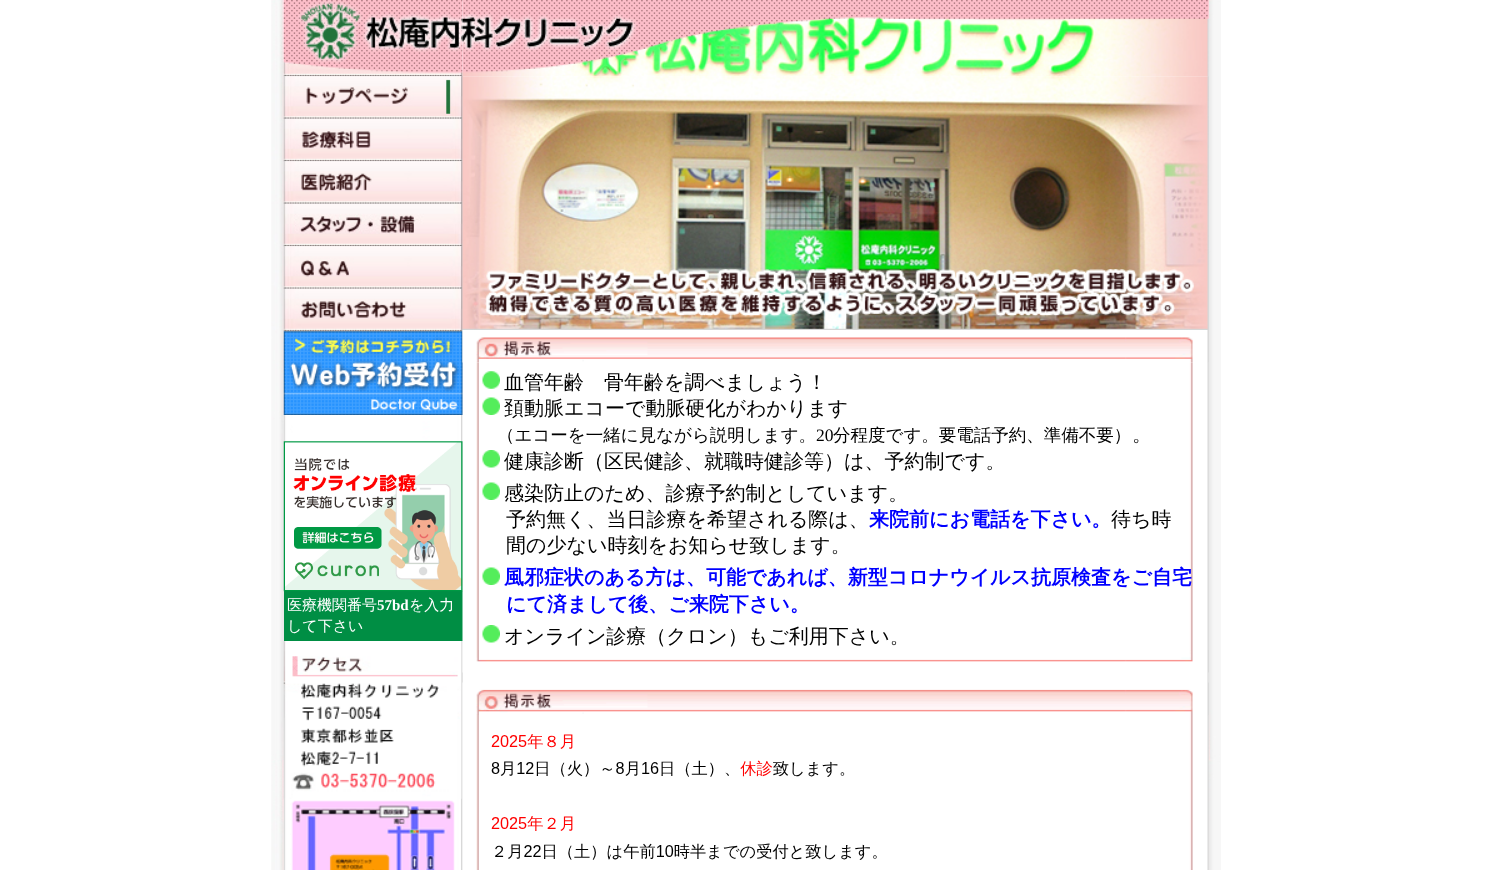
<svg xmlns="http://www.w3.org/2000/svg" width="1491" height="870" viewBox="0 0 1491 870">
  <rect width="100%" height="100%" fill="#ffffff"/>
  <image x="271" y="0" width="13" height="870" href="img1.png"/>
  <image x="283" y="76" width="180" height="794" href="img4.png"/>
  <image x="283" y="0" width="180" height="77" href="img2.png"/>
  <image x="1207" y="76" width="2" height="794" href="img15.png"/>
  <rect x="284" y="591" width="179" height="50" fill="#008e44"/>
  <image x="462" y="362" width="747" height="288" href="img18.png"/>
  <image x="462" y="715" width="747" height="155" href="img24.png"/>
  <image x="1208" y="0" width="13" height="870" href="img26.png"/>
  <image x="462" y="0" width="747" height="77" href="img3.png"/>
  <image x="283" y="76" width="180" height="43" href="img5.png"/>
  <image x="283" y="118" width="180" height="44" href="img6.png"/>
  <image x="283" y="161" width="180" height="43" href="img7.png"/>
  <image x="283" y="203" width="180" height="44" href="img8.png"/>
  <image x="283" y="246" width="180" height="43" href="img9.png"/>
  <image x="283" y="288" width="180" height="44" href="img10.png"/>
  <image x="283" y="331" width="180" height="84" href="img11.png"/>
  <image x="283" y="441" width="180" height="151" href="img12.png"/>
  <text x="287" y="610" font-family="WenQuanYi Zen Hei" font-size="15" font-weight="500" fill="#ffffff">医療機関番号</text>
  <text x="377" y="610" font-family="Liberation Serif" font-size="15" font-weight="bold" fill="#ffffff">57bd</text>
  <text x="409" y="610" font-family="WenQuanYi Zen Hei" font-size="15" font-weight="500" fill="#ffffff">を入力</text>
  <text x="287" y="631" font-family="WenQuanYi Zen Hei" font-size="15" font-weight="500" fill="#ffffff">して下さい</text>
  <image x="283" y="641" width="179" height="158" href="img13.png"/>
  <image x="291" y="800" width="164" height="70" href="img14.png"/>
  <image x="462" y="76" width="747" height="254" href="img16.png"/>
  <image x="462" y="330" width="747" height="33" href="img17.png"/>
  <image x="482" y="371" width="18" height="18" href="img19.png"/>
  <text x="504" y="389" font-family="WenQuanYi Zen Hei" font-size="20" font-weight="500" fill="#000000">血管年齢　骨年齢を調べましょう！</text>
  <image x="482" y="397" width="18" height="18" href="img20.png"/>
  <text x="504" y="415" font-family="WenQuanYi Zen Hei" font-size="20" font-weight="500" fill="#000000">頚動脈エコーで動脈硬化がわかります</text>
  <text x="497" y="441" font-family="WenQuanYi Zen Hei" font-size="17.5" font-weight="500" fill="#000000">（エコーを一緒に見ながら説明します。</text>
  <text x="816" y="441" font-family="Liberation Serif" font-size="17.5" fill="#000000">20</text>
  <text x="833" y="441" font-family="WenQuanYi Zen Hei" font-size="17.5" font-weight="500" fill="#000000">分程度です。要電話予約、準備不要）</text>
  <text x="1132" y="441" font-family="WenQuanYi Zen Hei" font-size="20" font-weight="500" fill="#000000">。</text>
  <image x="482" y="450" width="18" height="18" href="img21.png"/>
  <text x="504" y="468" font-family="WenQuanYi Zen Hei" font-size="20" font-weight="500" fill="#000000">健康診断（区民健診、就職時健診等）は、予約制です。</text>
  <image x="482" y="482" width="18" height="18" href="img20.png"/>
  <text x="504" y="500" font-family="WenQuanYi Zen Hei" font-size="20" font-weight="500" fill="#000000">感染防止のため、診療予約制としています。</text>
  <text x="506" y="526" font-family="WenQuanYi Zen Hei" font-size="20" font-weight="500" fill="#000000">予約無く、当日診療を希望される際は、</text>
  <text x="869" y="526" font-family="WenQuanYi Zen Hei" font-size="20" font-weight="bold" fill="#0000ff">来院前にお電話を下さい。</text>
  <text x="1111" y="526" font-family="WenQuanYi Zen Hei" font-size="20" font-weight="500" fill="#000000">待ち時</text>
  <text x="506" y="552" font-family="WenQuanYi Zen Hei" font-size="20" font-weight="500" fill="#000000">間の少ない時刻をお知らせ致します。</text>
  <image x="482" y="567" width="18" height="18" href="img20.png"/>
  <text x="504" y="584" font-family="WenQuanYi Zen Hei" font-size="20" font-weight="bold" fill="#0000ff">風邪症状のある方は、可能であれば、新型コロナウイルス抗原検査をご自宅</text>
  <text x="506" y="611" font-family="WenQuanYi Zen Hei" font-size="20" font-weight="bold" fill="#0000ff">にて済まして後、ご来院下さい。</text>
  <image x="482" y="625" width="18" height="18" href="img21.png"/>
  <text x="504" y="643" font-family="WenQuanYi Zen Hei" font-size="20" font-weight="500" fill="#000000">オンライン診療（クロン）もご利用下さい。</text>
  <image x="462" y="650" width="747" height="23" href="img22.png"/>
  <image x="462" y="682" width="747" height="33" href="img23.png"/>
  <image x="491" y="734" width="386" height="126" href="img25.png"/>
</svg>
